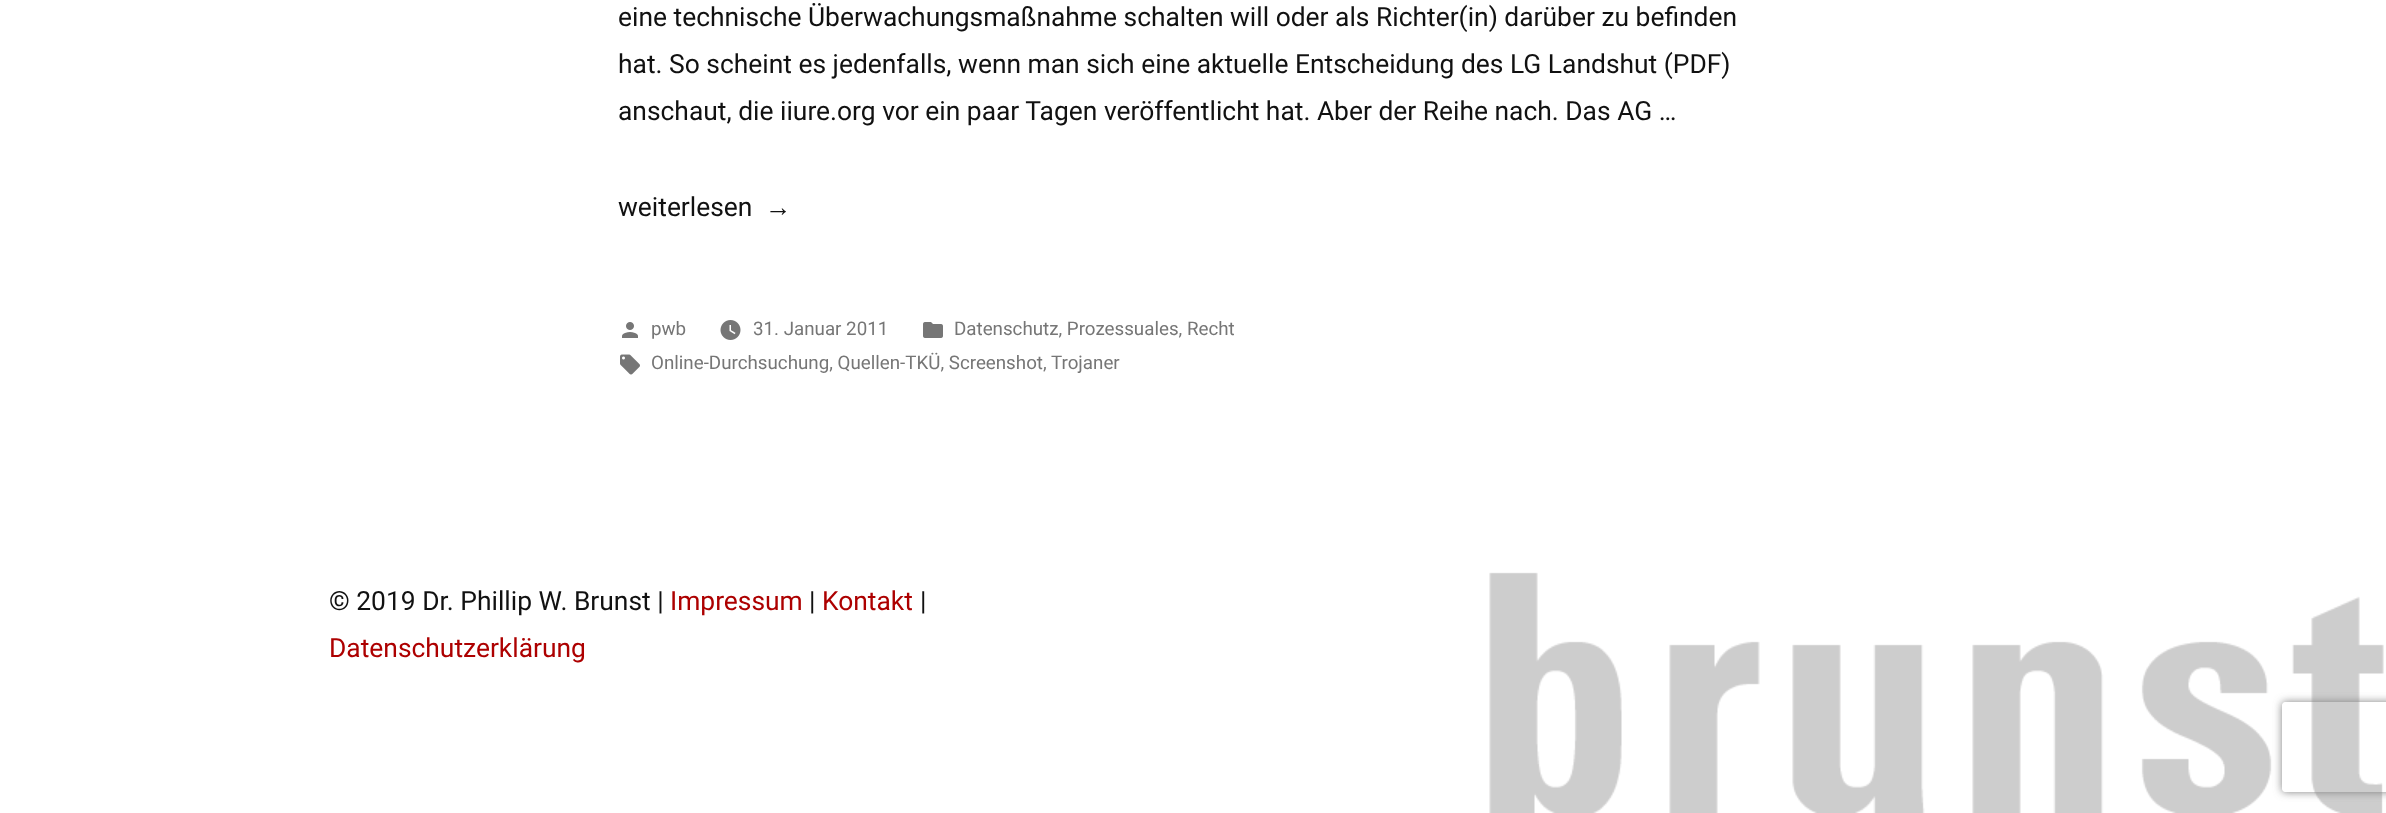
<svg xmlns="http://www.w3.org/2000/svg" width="2386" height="813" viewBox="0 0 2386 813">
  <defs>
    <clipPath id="clip1"><path d="M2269 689H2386V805H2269ZM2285 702H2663C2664.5 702 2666 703.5 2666 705V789C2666 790.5 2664.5 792 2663 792H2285C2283.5 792 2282 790.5 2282 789V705C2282 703.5 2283.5 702 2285 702Z" clip-rule="evenodd"/></clipPath>
    <filter id="blur1" x="-50%" y="-200%" width="200%" height="500%"><feGaussianBlur stdDeviation="4"/></filter>
  </defs>
  <rect width="100%" height="100%" fill="#ffffff"/>
  <image x="1489" y="572" width="895" height="241" href="img1.png"/>
  <text x="618" y="26" font-family="Roboto" font-size="26.4" fill="#111111">eine technische Überwachungsmaßnahme schalten will oder als Richter(in) darüber zu befinden</text>
  <text x="618" y="73" font-family="Roboto" font-size="26.4" fill="#111111">hat. So scheint es jedenfalls, wenn man sich eine aktuelle Entscheidung des LG Landshut (PDF)</text>
  <text x="618" y="120" font-family="Roboto" font-size="26.4" fill="#111111">anschaut, die iiure.org vor ein paar Tagen veröffentlicht hat. Aber der Reihe nach. Das AG …</text>
  <text x="618" y="216" font-family="Roboto" font-size="26.4" fill="#111111">weiterlesen</text>
  <text x="765" y="216" font-family="Liberation Serif" font-size="26.4" fill="#111111">→</text>
  <image x="622" y="322" width="16" height="16" href="img2.png"/>
  <text x="651" y="335" font-family="Roboto" font-size="18.75" fill="#767676">pwb</text>
  <image x="720" y="320" width="21" height="20" href="img3.png"/>
  <text x="753" y="335" font-family="Roboto" font-size="18.75" fill="#767676">31. Januar 2011</text>
  <image x="923" y="322" width="20" height="16" href="img4.png"/>
  <text x="954" y="335" font-family="Roboto" font-size="18.75" fill="#767676">Datenschutz, Prozessuales, Recht</text>
  <image x="620" y="354" width="20" height="21" href="img5.png"/>
  <text x="651" y="369" font-family="Roboto" font-size="18.75" fill="#767676">Online-Durchsuchung, Quellen-TKÜ, Screenshot,</text>
  <text x="1051" y="369" font-family="Roboto" font-size="18.75" fill="#767676">Trojaner</text>
  <text x="329" y="610" font-family="Roboto" font-size="26.4" fill="#111111">© 2019 Dr. Phillip W. Brunst |</text>
  <text x="670" y="610" font-family="Roboto" font-size="26.4" fill="#ad0000">Impressum</text>
  <text x="809" y="610" font-family="Roboto" font-size="26.4" fill="#111111">|</text>
  <text x="822" y="610" font-family="Roboto" font-size="26.4" fill="#ad0000">Kontakt</text>
  <text x="920" y="610" font-family="Roboto" font-size="26.4" fill="#111111">|</text>
  <text x="329" y="657" font-family="Roboto" font-size="26.4" fill="#ad0000">Datenschutzerklärung</text>
  <g clip-path="url(#clip1)">
    <rect x="2282" y="702" width="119" height="90" rx="3" fill="#808080" filter="url(#blur1)"/>
  </g>
</svg>
